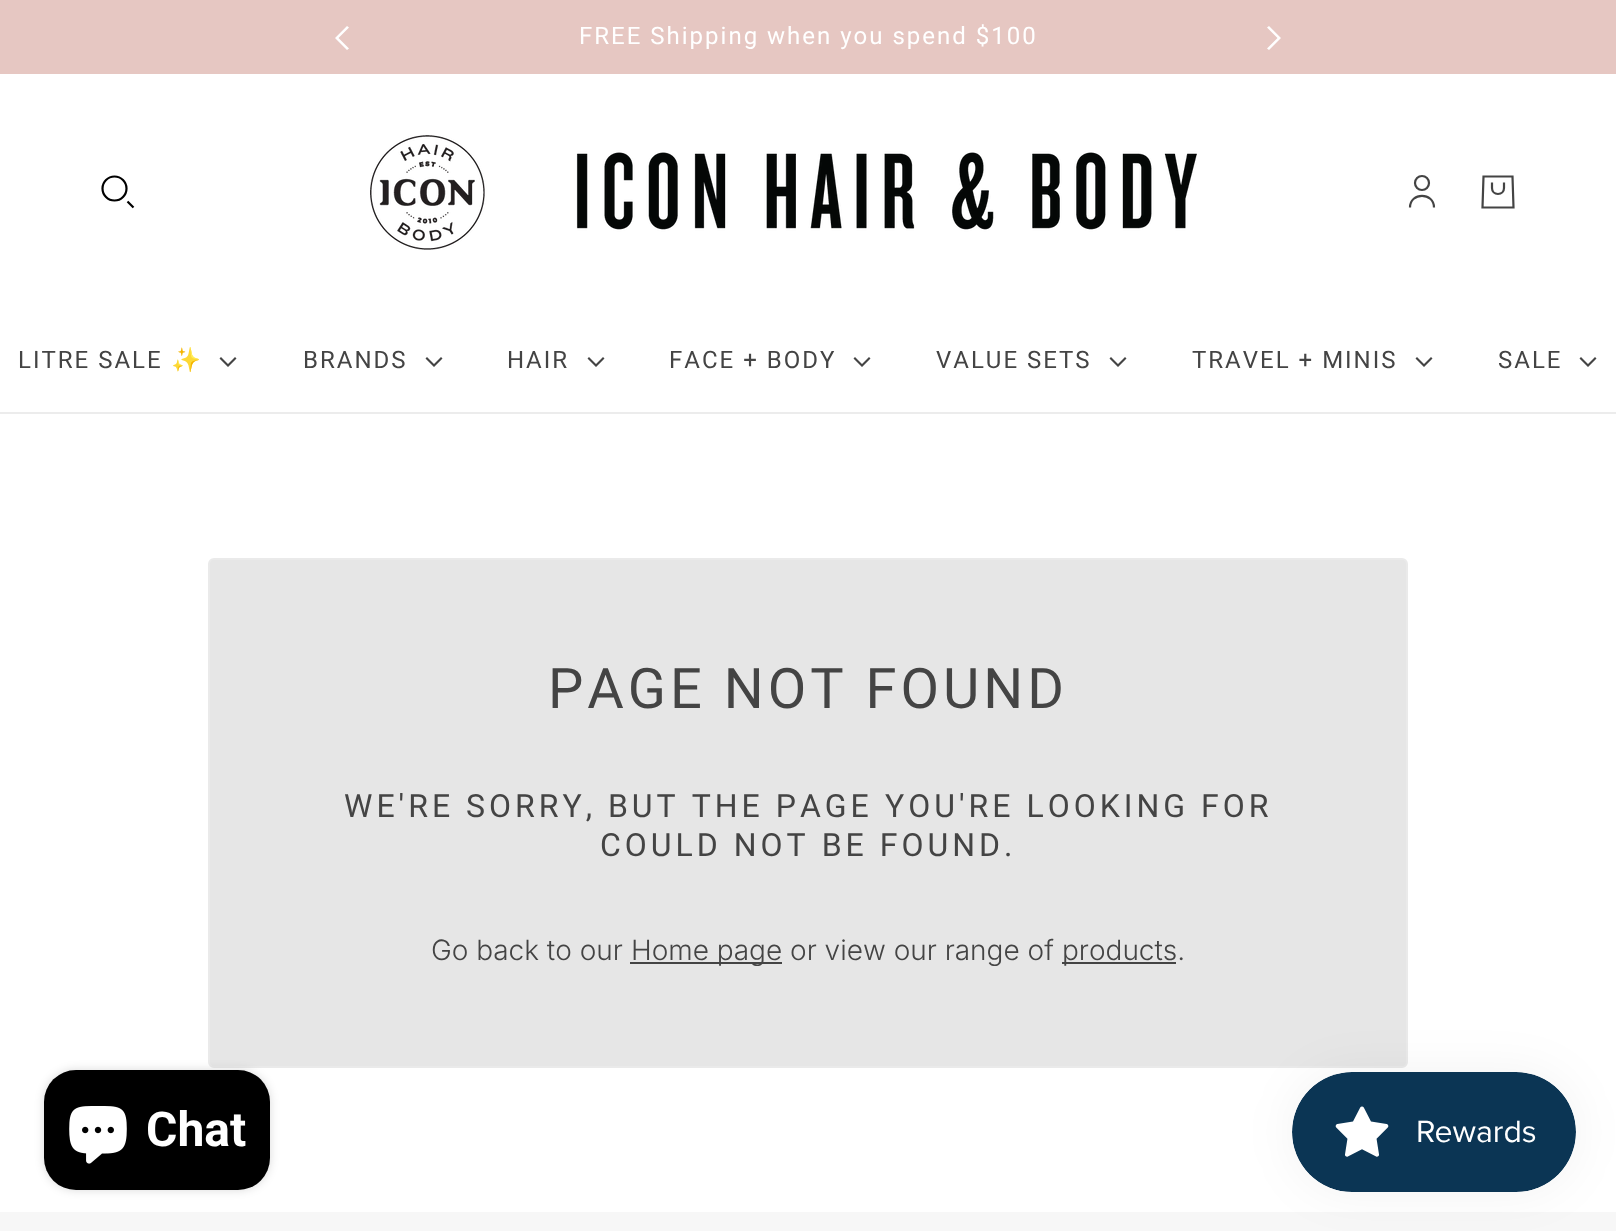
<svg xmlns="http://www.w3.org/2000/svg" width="1616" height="1231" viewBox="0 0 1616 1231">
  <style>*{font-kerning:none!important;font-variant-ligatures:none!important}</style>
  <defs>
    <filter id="blur1" x="-50%" y="-200%" width="200%" height="500%"><feGaussianBlur stdDeviation="5"/></filter>
    <filter id="blur2" x="-50%" y="-200%" width="200%" height="500%"><feGaussianBlur stdDeviation="25"/></filter>
  </defs>
  <rect width="100%" height="100%" fill="#ffffff"/>
  <rect x="0" y="0" width="1616" height="74" fill="#e6c7c2"/>
  <path d="M338.5 38L349 48.5L347 50L335 38L347 26L349 27.5Z" fill="#ffffff"/>
  <text x="579" y="44" font-family="Roboto" font-size="24" letter-spacing="2" fill="#ffffff">FREE Shipping when you spend $100</text>
  <path d="M1277.5 38L1267 27.5L1269 26L1281 38L1269 50L1267 48.5Z" fill="#ffffff"/>
  <circle cx="114.5" cy="188.5" r="12" fill="none" stroke="#000000" stroke-width="2.2"/>
  <path d="M127.5 201.5L133.5 207.5" fill="none" stroke="#000000" stroke-width="2.2"/>
  <image x="370" y="135" width="827" height="115" href="img1.png"/>
  <circle cx="1422" cy="183" r="7" fill="none" stroke="#444444" stroke-width="2.2"/>
  <path d="M1410 207.5C1410 192 1434 192 1434 207.5" fill="none" stroke="#444444" stroke-width="2.2"/>
  <path d="M1513.5 207.5H1482.5L1483.5 176.5H1512.5ZM1492 182.5V188C1492 191.5 1494.5 194 1498 194C1501.5 194 1504 191.5 1504 188V182.5" fill="none" stroke="#444444" stroke-width="2.2"/>
  <text x="18" y="368" font-family="Roboto" font-size="24" letter-spacing="2" fill="#444444">LITRE SALE</text>
  <text x="171" y="368" font-family="Noto Color Emoji" font-size="24" letter-spacing="2" fill="#444444">✨</text>
  <path d="M228 364L235 357L236.5 358.5L228 367L219.5 358.5L221 357Z" fill="#444444"/>
  <text x="303" y="368" font-family="Roboto" font-size="24" letter-spacing="2" fill="#444444">BRANDS</text>
  <path d="M434 364L441 357L442.5 358.5L434 367L425.5 358.5L427 357Z" fill="#444444"/>
  <text x="507" y="368" font-family="Roboto" font-size="24" letter-spacing="2" fill="#444444">HAIR</text>
  <path d="M596 364L603 357L604.5 358.5L596 367L587.5 358.5L589 357Z" fill="#444444"/>
  <text x="669" y="368" font-family="Roboto" font-size="24" letter-spacing="2" fill="#444444">FACE + BODY</text>
  <path d="M862 364L869 357L870.5 358.5L862 367L853.5 358.5L855 357Z" fill="#444444"/>
  <text x="936" y="368" font-family="Roboto" font-size="24" letter-spacing="2" fill="#444444">VALUE SETS</text>
  <path d="M1118 364L1125 357L1126.5 358.5L1118 367L1109.5 358.5L1111 357Z" fill="#444444"/>
  <text x="1192" y="368" font-family="Roboto" font-size="24" letter-spacing="2" fill="#444444">TRAVEL + MINIS</text>
  <path d="M1424 364L1431 357L1432.5 358.5L1424 367L1415.5 358.5L1417 357Z" fill="#444444"/>
  <text x="1498" y="368" font-family="Roboto" font-size="24" letter-spacing="2" fill="#444444">SALE</text>
  <path d="M1588 364L1595 357L1596.5 358.5L1588 367L1579.5 358.5L1581 357Z" fill="#444444"/>
  <rect x="0" y="412" width="1616" height="2" fill="#ececec"/>
  <rect x="209" y="559" width="1198" height="508" rx="5" fill="#e6e6e6" stroke="#eaeaea" stroke-width="2"/>
  <text x="548" y="708" font-family="Roboto" font-size="56" letter-spacing="4" fill="#444444">PAGE NOT FOUND</text>
  <text x="344" y="817" font-family="Roboto" font-size="32" letter-spacing="4" fill="#444444">WE'RE SORRY, BUT THE PAGE</text>
  <text x="885" y="817" font-family="Roboto" font-size="32" letter-spacing="4" fill="#444444">YOU'RE LOOKING FOR</text>
  <text x="600" y="856" font-family="Roboto" font-size="32" letter-spacing="4" fill="#444444">COULD NOT BE FOUND.</text>
  <text x="431" y="960" font-family="Inter" font-size="28" font-weight="300" fill="#444444">Go back to our</text>
  <rect x="630" y="962" width="152" height="2" fill="#444444"/>
  <text x="631" y="960" font-family="Inter" font-size="28" font-weight="300" fill="#444444">Home page or view our range of</text>
  <rect x="1062" y="962" width="114" height="2" fill="#444444"/>
  <text x="1062" y="960" font-family="Inter" font-size="28" font-weight="300" fill="#444444">products.</text>
  <rect x="0" y="1212" width="1616" height="19" fill="#f7f7f7"/>
  <rect x="44" y="1070" width="226" height="120" rx="32" fill="#000000" fill-opacity="0.15" filter="url(#blur1)"/>
  <rect x="44" y="1070" width="226" height="120" rx="32" fill="#000000"/>
  <image x="69" y="1106" width="58" height="58" href="img2.png"/>
  <text x="146" y="1146" font-family="Roboto" font-size="48" font-weight="bold" fill="#ffffff">Chat</text>
  <rect x="1292" y="1072" width="284" height="120" rx="60" fill="#000000" fill-opacity="0.05" filter="url(#blur2)"/>
  <image x="1292" y="1072" width="284" height="120" href="img3.png"/>
</svg>
